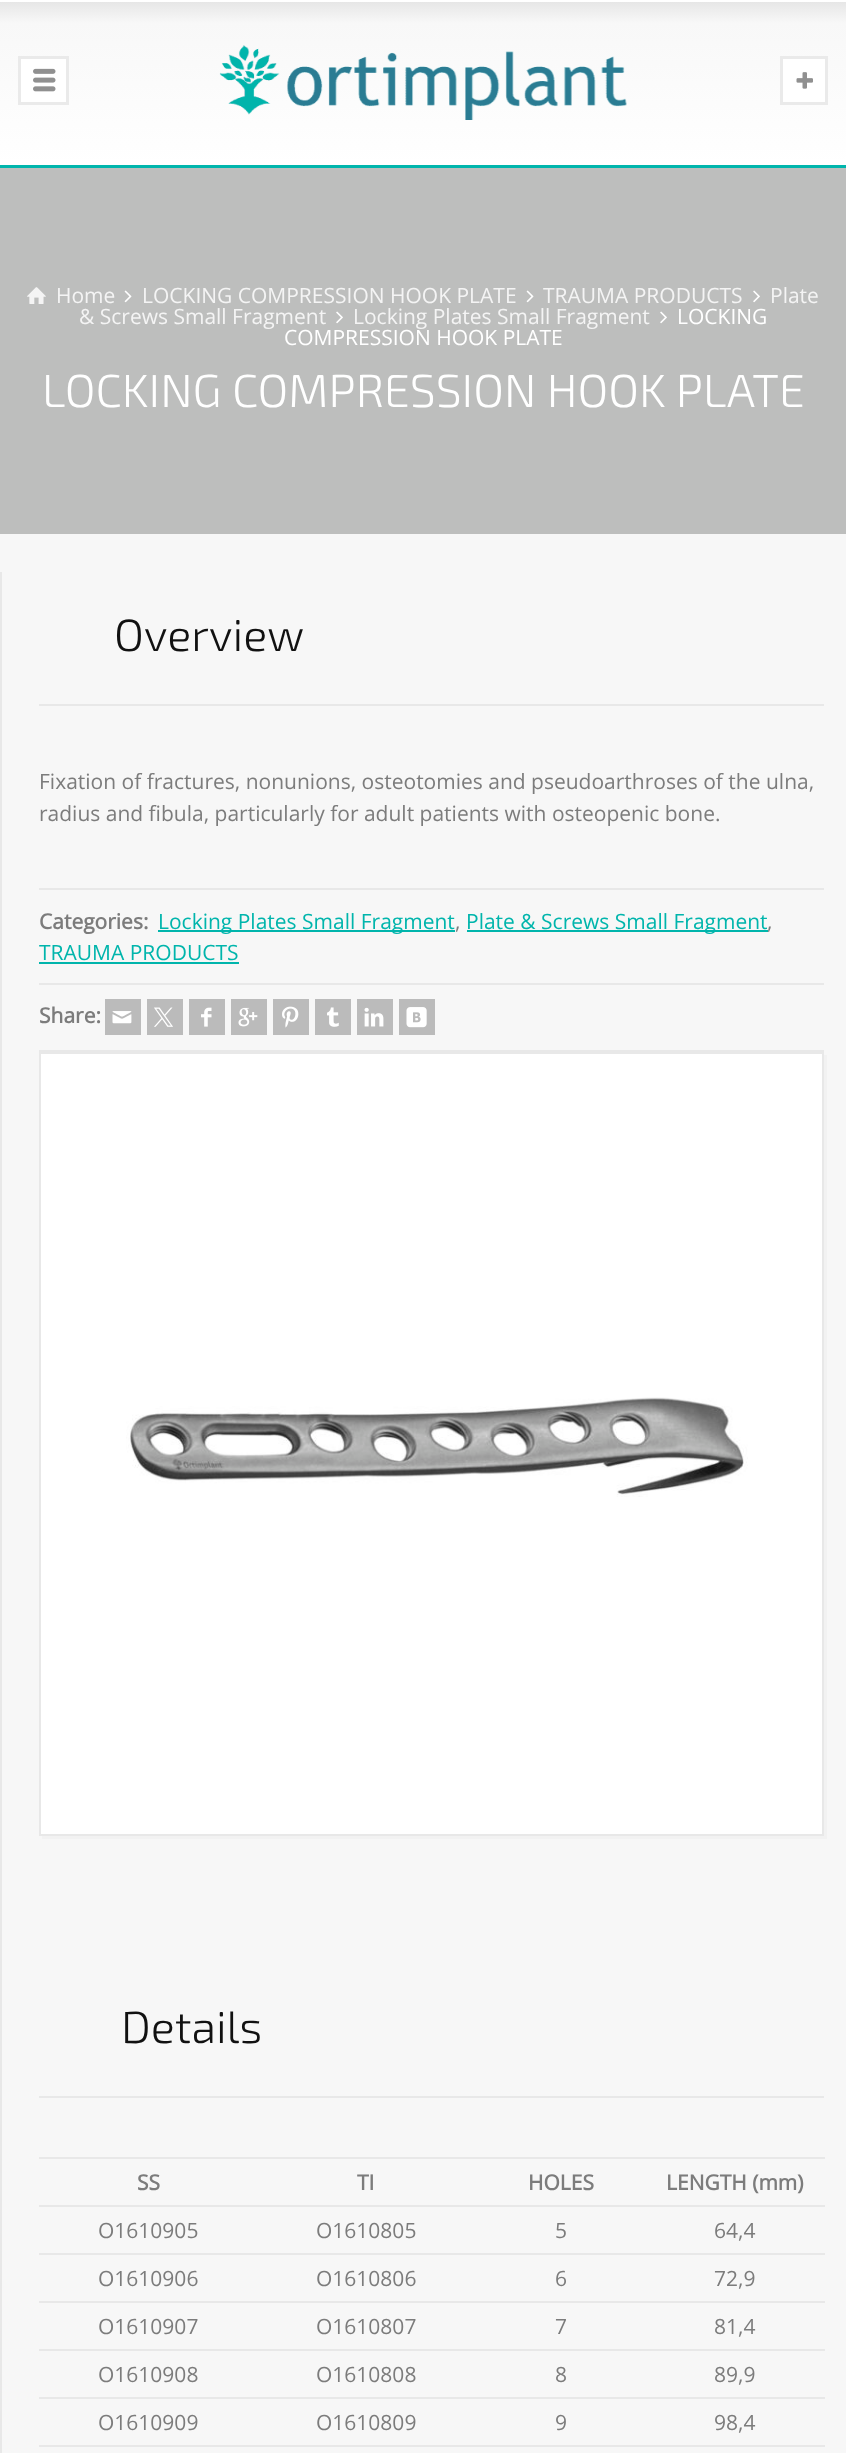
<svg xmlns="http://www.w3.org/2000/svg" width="846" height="2453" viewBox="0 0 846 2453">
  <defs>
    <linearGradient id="g1" gradientUnits="userSpaceOnUse" x1="423" y1="0" x2="423" y2="165"><stop offset="0.01" stop-color="#ffffff"/><stop offset="0.01" stop-color="#e6e6e6"/><stop offset="0.14" stop-color="#f8f8f8"/><stop offset="1" stop-color="#ffffff"/></linearGradient>
  </defs>
  <rect width="100%" height="100%" fill="#bdbebd"/>
  <rect x="0" y="0" width="846" height="165" fill="url(#g1)"/>
  <image x="219" y="45" width="408" height="75" href="img1.png"/>
  <rect x="19.5" y="57.5" width="48" height="46" fill="#ffffff" stroke="#eaeaea" stroke-width="3"/>
  <image x="33" y="68" width="23" height="24" href="img2.png"/>
  <rect x="781.5" y="57.5" width="45" height="46" fill="#ffffff" stroke="#eaeaea" stroke-width="3"/>
  <image x="796" y="72" width="17" height="17" href="img3.png"/>
  <rect x="0" y="165" width="846" height="3" fill="#00b5ac"/>
  <text x="770" y="303" font-family="Open Sans" font-size="21" fill="#f4f4f4">Plate</text>
  <text x="79" y="324" font-family="Open Sans" font-size="21" fill="#f4f4f4">&amp; Screws Small Fragment</text>
  <image x="336" y="311" width="7" height="13" href="img4.png"/>
  <image x="27" y="287" width="19" height="17" href="img5.png"/>
  <text x="56" y="303" font-family="Open Sans" font-size="21" fill="#f4f4f4">Home</text>
  <image x="124" y="290" width="8" height="13" href="img6.png"/>
  <text x="142" y="303" font-family="Open Sans" font-size="21" fill="#f4f4f4">LOCKING COMPRESSION HOOK PLATE</text>
  <image x="526" y="290" width="8" height="13" href="img6.png"/>
  <text x="543" y="303" font-family="Open Sans" font-size="21" fill="#f4f4f4">TRAUMA PRODUCTS</text>
  <image x="753" y="290" width="7" height="13" href="img4.png"/>
  <text x="353" y="324" font-family="Open Sans" font-size="21" fill="#f4f4f4">Locking Plates Small Fragment</text>
  <image x="660" y="311" width="7" height="13" href="img4.png"/>
  <text x="677" y="324" font-family="Open Sans" font-size="21" fill="#ffffff">LOCKING</text>
  <text x="284" y="345" font-family="Open Sans" font-size="21" fill="#ffffff">COMPRESSION HOOK PLATE</text>
  <text x="42" y="407" font-family="'Exo 2'" font-size="46.25" font-weight="300" fill="#ffffff">LOCKING COMPRESSION HOOK PLATE</text>
  <rect x="0" y="534" width="846" height="1919" fill="#f7f7f7"/>
  <rect x="0" y="572" width="2" height="1881" fill="#e8e8e8"/>
  <rect x="39" y="704" width="785" height="2" fill="#e8e8e8"/>
  <text x="114" y="651" font-family="'Exo 2'" font-size="45" font-weight="300" fill="#111111">Overview</text>
  <text x="39" y="789" font-family="Open Sans" font-size="21" fill="#7c7c7c">Fixation of fractures, nonunions, osteotomies and pseudoarthroses of the ulna,</text>
  <text x="39" y="821" font-family="Open Sans" font-size="21" fill="#7c7c7c">radius and fibula, particularly for adult patients with osteopenic bone.</text>
  <rect x="39" y="1050" width="785" height="2" fill="#e8e8e8"/>
  <rect x="39" y="888" width="785" height="2" fill="#e8e8e8"/>
  <text x="39" y="929" font-family="Open Sans" font-size="21" font-weight="bold" fill="#7c7c7c">Categories:</text>
  <rect x="158" y="930" width="297" height="2" fill="#00b5ac"/>
  <text x="158" y="929" font-family="Open Sans" font-size="21" fill="#00b5ac">Locking Plates Small Fragment</text>
  <text x="455" y="929" font-family="Open Sans" font-size="21" fill="#7c7c7c">,</text>
  <rect x="467" y="930" width="301" height="2" fill="#00b5ac"/>
  <text x="466" y="929" font-family="Open Sans" font-size="21" fill="#00b5ac">Plate &amp; Screws Small Fragment</text>
  <text x="767" y="929" font-family="Open Sans" font-size="21" fill="#7c7c7c">,</text>
  <text x="39" y="960" font-family="Open Sans" font-size="21" fill="#00b5ac">TRAUMA PRODUCTS</text>
  <rect x="39" y="962" width="200" height="2" fill="#00b5ac"/>
  <rect x="39" y="983" width="785" height="2" fill="#e8e8e8"/>
  <text x="39" y="1023" font-family="Open Sans" font-size="21" font-weight="bold" fill="#7c7c7c">Share:</text>
  <rect x="105" y="999" width="36" height="36" fill="#bbbbbb"/>
  <image x="112" y="1011" width="20" height="13" href="img7.png"/>
  <rect x="147" y="999" width="36" height="36" fill="#bbbbbb"/>
  <image x="154" y="1007" width="19" height="20" href="img8.png"/>
  <rect x="189" y="999" width="36" height="36" fill="#bbbbbb"/>
  <image x="201" y="1007" width="11" height="20" href="img9.png"/>
  <rect x="231" y="999" width="36" height="36" fill="#bbbbbb"/>
  <image x="238" y="1007" width="20" height="20" href="img10.png"/>
  <rect x="273" y="999" width="36" height="36" fill="#bbbbbb"/>
  <image x="282" y="1006" width="17" height="22" href="img11.png"/>
  <rect x="315" y="999" width="36" height="36" fill="#bbbbbb"/>
  <image x="327" y="1007" width="12" height="20" href="img12.png"/>
  <rect x="357" y="999" width="36" height="36" fill="#bbbbbb"/>
  <image x="364" y="1007" width="20" height="20" href="img13.png"/>
  <rect x="399" y="999" width="36" height="36" fill="#bbbbbb"/>
  <image x="406" y="1007" width="21" height="21" href="img14.png"/>
  <path d="M42 1836V1839H827V1055H824V1836Z" fill="#f2f2f2"/>
  <rect x="40" y="1053" width="783" height="782" fill="#ffffff" stroke="#e8e8e8" stroke-width="2"/>
  <image x="126" y="1397" width="622" height="100" href="img15.png"/>
  <rect x="39" y="2096" width="785" height="2" fill="#e8e8e8"/>
  <text x="121" y="2043" font-family="'Exo 2'" font-size="45" font-weight="300" fill="#111111">Details</text>
  <text x="137" y="2190" font-family="Open Sans" font-size="21" font-weight="bold" fill="#7c7c7c">SS</text>
  <text x="357" y="2190" font-family="Open Sans" font-size="21" font-weight="bold" fill="#7c7c7c">TI</text>
  <text x="528" y="2190" font-family="Open Sans" font-size="21" font-weight="bold" fill="#7c7c7c">HOLES</text>
  <rect x="39" y="2157" width="786" height="2" fill="#e8e8e8"/>
  <text x="666" y="2190" font-family="Open Sans" font-size="21" font-weight="bold" fill="#7c7c7c">LENGTH (mm)</text>
  <text x="98" y="2238" font-family="Open Sans" font-size="21" fill="#7c7c7c">O1610905</text>
  <text x="316" y="2238" font-family="Open Sans" font-size="21" fill="#7c7c7c">O1610805</text>
  <text x="555" y="2238" font-family="Open Sans" font-size="21" fill="#7c7c7c">5</text>
  <rect x="39" y="2205" width="786" height="2" fill="#e8e8e8"/>
  <text x="714" y="2238" font-family="Open Sans" font-size="21" fill="#7c7c7c">64,4</text>
  <text x="98" y="2286" font-family="Open Sans" font-size="21" fill="#7c7c7c">O1610906</text>
  <text x="316" y="2286" font-family="Open Sans" font-size="21" fill="#7c7c7c">O1610806</text>
  <text x="555" y="2286" font-family="Open Sans" font-size="21" fill="#7c7c7c">6</text>
  <rect x="39" y="2253" width="786" height="2" fill="#e8e8e8"/>
  <text x="714" y="2286" font-family="Open Sans" font-size="21" fill="#7c7c7c">72,9</text>
  <text x="98" y="2334" font-family="Open Sans" font-size="21" fill="#7c7c7c">O1610907</text>
  <text x="316" y="2334" font-family="Open Sans" font-size="21" fill="#7c7c7c">O1610807</text>
  <text x="555" y="2334" font-family="Open Sans" font-size="21" fill="#7c7c7c">7</text>
  <rect x="39" y="2301" width="786" height="2" fill="#e8e8e8"/>
  <text x="714" y="2334" font-family="Open Sans" font-size="21" fill="#7c7c7c">81,4</text>
  <text x="98" y="2382" font-family="Open Sans" font-size="21" fill="#7c7c7c">O1610908</text>
  <text x="316" y="2382" font-family="Open Sans" font-size="21" fill="#7c7c7c">O1610808</text>
  <text x="555" y="2382" font-family="Open Sans" font-size="21" fill="#7c7c7c">8</text>
  <rect x="39" y="2349" width="786" height="2" fill="#e8e8e8"/>
  <text x="714" y="2382" font-family="Open Sans" font-size="21" fill="#7c7c7c">89,9</text>
  <text x="98" y="2430" font-family="Open Sans" font-size="21" fill="#7c7c7c">O1610909</text>
  <text x="316" y="2430" font-family="Open Sans" font-size="21" fill="#7c7c7c">O1610809</text>
  <text x="555" y="2430" font-family="Open Sans" font-size="21" fill="#7c7c7c">9</text>
  <rect x="39" y="2397" width="786" height="2" fill="#e8e8e8"/>
  <text x="714" y="2430" font-family="Open Sans" font-size="21" fill="#7c7c7c">98,4</text>
  <rect x="39" y="2445" width="786" height="2" fill="#e8e8e8"/>
</svg>
